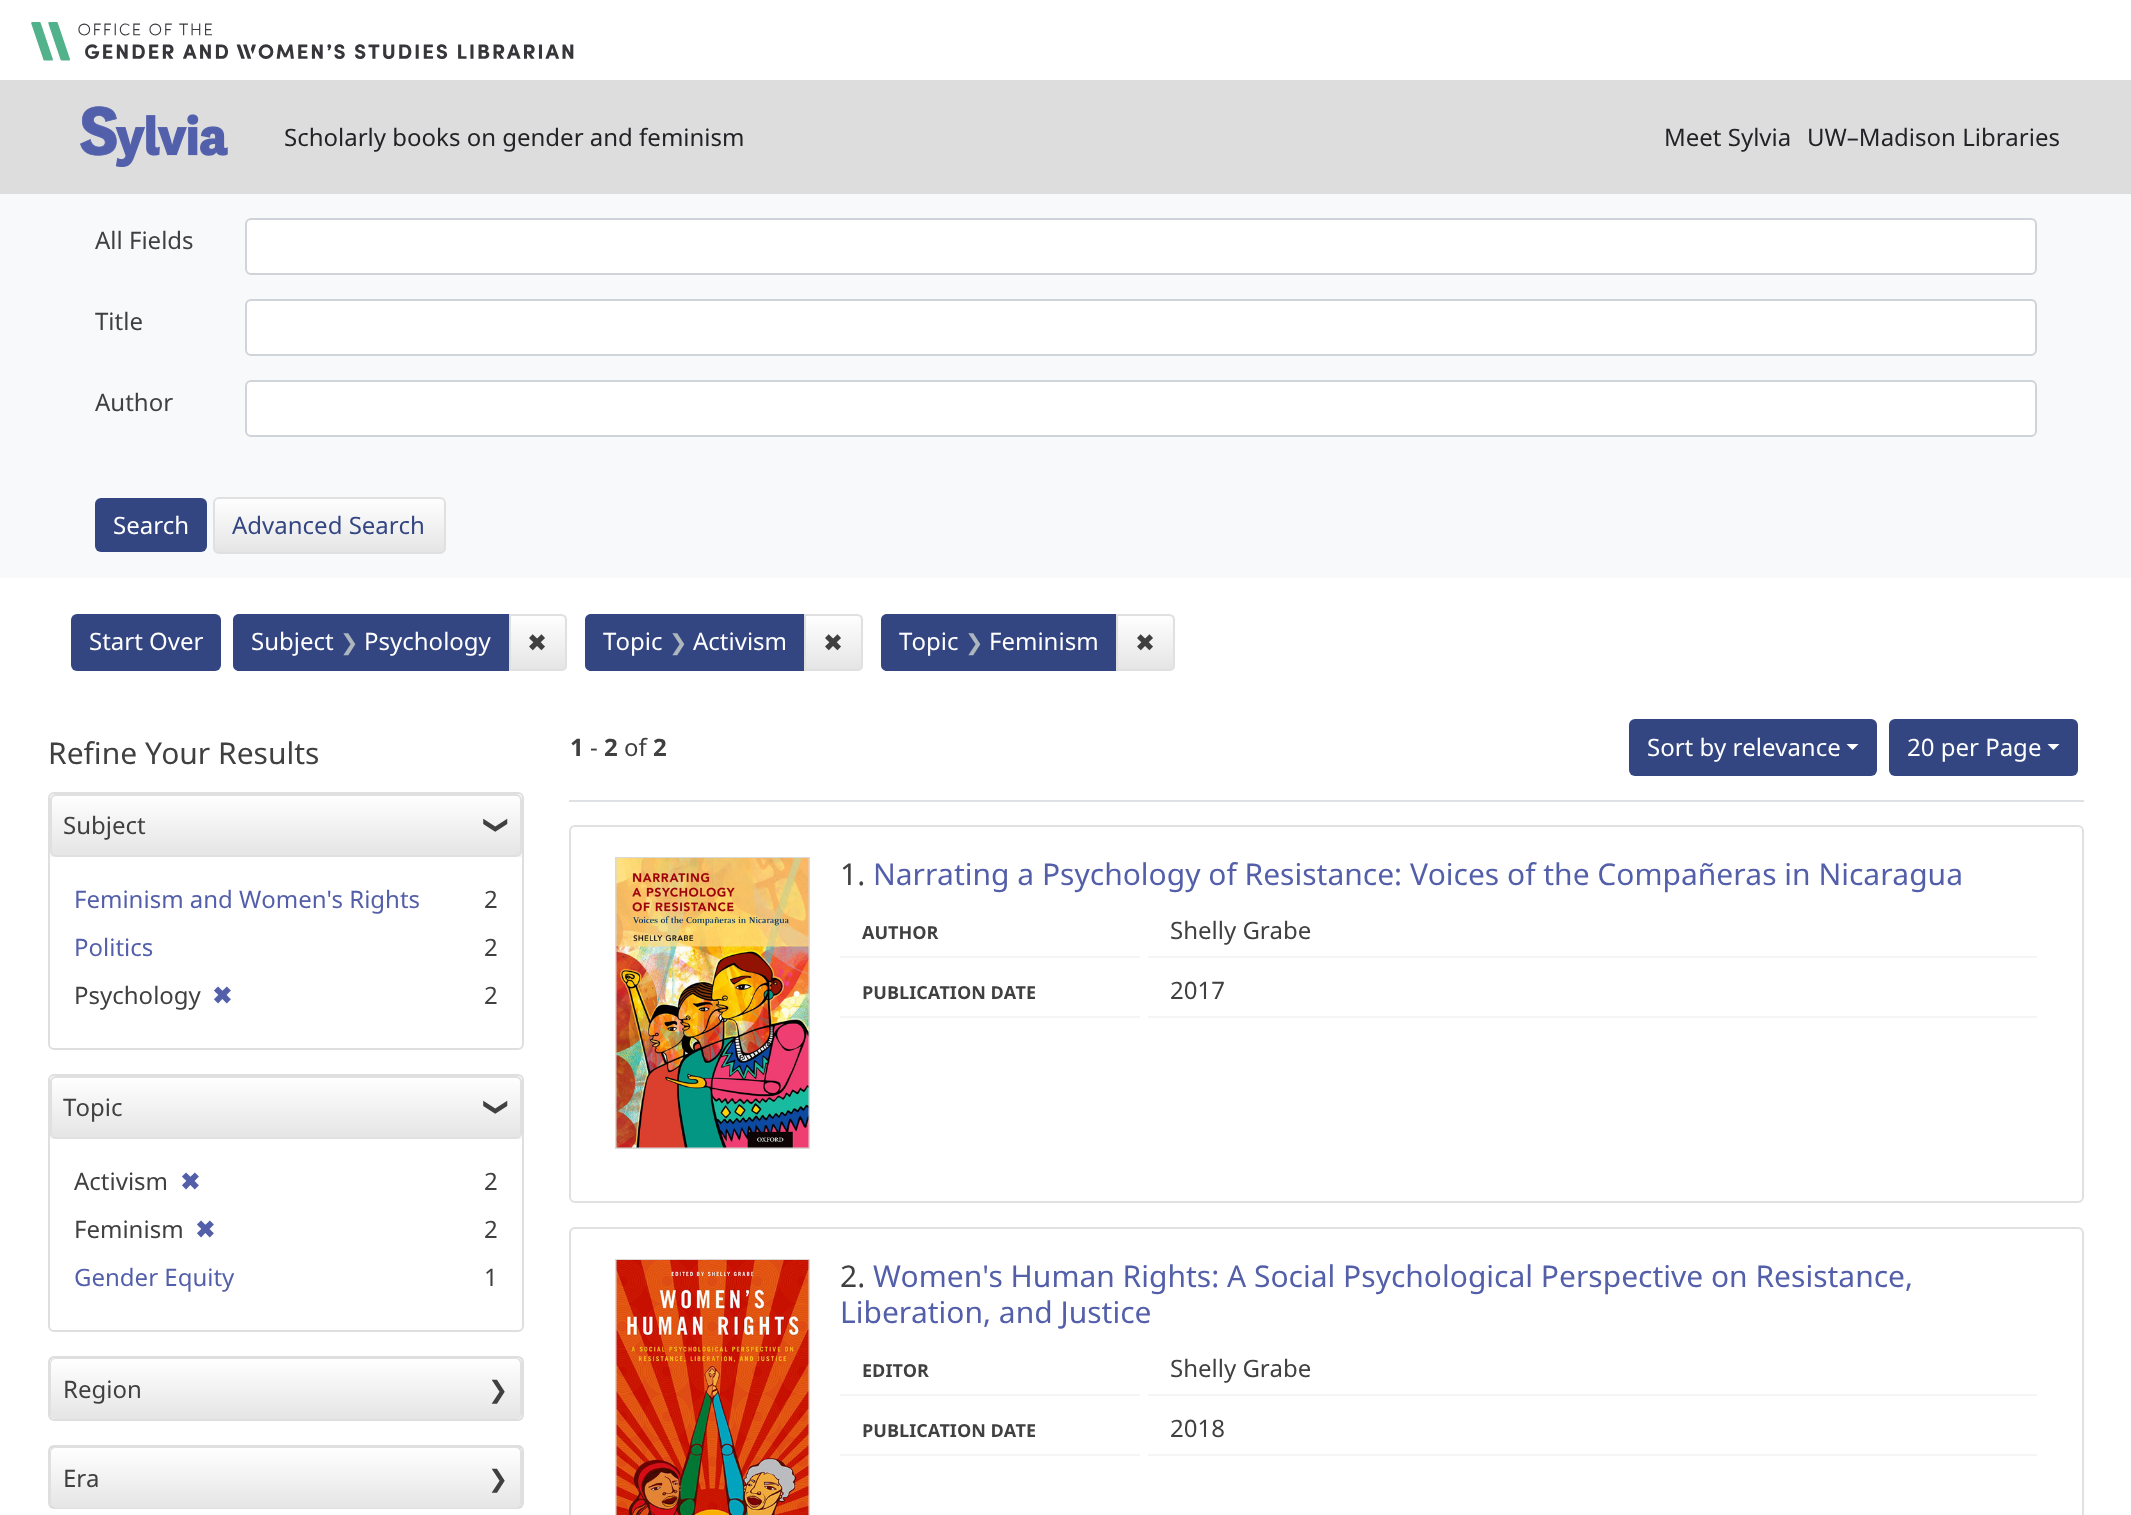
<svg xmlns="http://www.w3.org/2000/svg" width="2131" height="1515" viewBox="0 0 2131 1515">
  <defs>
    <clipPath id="clip1"><rect x="213" y="497" width="233" height="57" rx="6"/></clipPath>
    <linearGradient id="g1" gradientUnits="userSpaceOnUse" x1="329" y1="498" x2="329" y2="552"><stop offset="0" stop-color="#ffffff"/><stop offset="1" stop-color="#e5e5e5"/></linearGradient>
    <clipPath id="clip2"><path d="M509 614H561C564.5 614 567 616.5 567 620V665C567 668.5 564.5 671 561 671H509Z"/></clipPath>
    <linearGradient id="g2" gradientUnits="userSpaceOnUse" x1="538" y1="615" x2="538" y2="669"><stop offset="0" stop-color="#ffffff"/><stop offset="1" stop-color="#e5e5e5"/></linearGradient>
    <clipPath id="clip3"><path d="M804 614H857C860.5 614 863 616.5 863 620V665C863 668.5 860.5 671 857 671H804Z"/></clipPath>
    <linearGradient id="g3" gradientUnits="userSpaceOnUse" x1="833" y1="615" x2="833" y2="669"><stop offset="0" stop-color="#ffffff"/><stop offset="1" stop-color="#e5e5e5"/></linearGradient>
    <clipPath id="clip4"><path d="M1116 614H1169C1172.5 614 1175 616.5 1175 620V665C1175 668.5 1172.5 671 1169 671H1116Z"/></clipPath>
    <linearGradient id="g4" gradientUnits="userSpaceOnUse" x1="1145" y1="615" x2="1145" y2="669"><stop offset="0" stop-color="#ffffff"/><stop offset="1" stop-color="#e5e5e5"/></linearGradient>
    <clipPath id="clip5"><rect x="50" y="794" width="472" height="63" rx="6"/></clipPath>
    <linearGradient id="g5" gradientUnits="userSpaceOnUse" x1="286" y1="795" x2="286" y2="855"><stop offset="0" stop-color="#ffffff"/><stop offset="1" stop-color="#e5e5e5"/></linearGradient>
    <clipPath id="clip6"><rect x="50" y="1076" width="472" height="63" rx="6"/></clipPath>
    <linearGradient id="g6" gradientUnits="userSpaceOnUse" x1="286" y1="1077" x2="286" y2="1137"><stop offset="0" stop-color="#ffffff"/><stop offset="1" stop-color="#e5e5e5"/></linearGradient>
    <clipPath id="clip7"><rect x="50" y="1358" width="472" height="61" rx="6"/></clipPath>
    <linearGradient id="g7" gradientUnits="userSpaceOnUse" x1="286" y1="1359" x2="286" y2="1419"><stop offset="0" stop-color="#ffffff"/><stop offset="1" stop-color="#e5e5e5"/></linearGradient>
    <clipPath id="clip8"><rect x="50" y="1446" width="472" height="62" rx="6"/></clipPath>
    <linearGradient id="g8" gradientUnits="userSpaceOnUse" x1="286" y1="1448" x2="286" y2="1508"><stop offset="0" stop-color="#ffffff"/><stop offset="1" stop-color="#e5e5e5"/></linearGradient>
  </defs>
  <rect width="100%" height="100%" fill="#ffffff"/>
  <image x="31" y="22" width="543" height="39" href="img1.png"/>
  <rect x="0" y="80" width="2131" height="114" fill="#dddddd"/>
  <image x="80" y="106" width="148" height="61" href="img2.png"/>
  <text x="284" y="146" font-family="Noto Sans" font-size="24" fill="#232226">Scholarly books on gender and feminism</text>
  <text x="1664" y="146" font-family="Noto Sans" font-size="24" fill="#232226">Meet Sylvia</text>
  <text x="1807" y="146" font-family="Noto Sans" font-size="24" fill="#232226">UW–Madison Libraries</text>
  <rect x="0" y="194" width="2131" height="384" fill="#f8f9fa"/>
  <text x="95" y="249" font-family="Noto Sans" font-size="24" fill="#404040">All Fields</text>
  <rect x="246" y="219" width="1790" height="55" rx="5" fill="#ffffff" stroke="#ced4da" stroke-width="2"/>
  <text x="95" y="330" font-family="Noto Sans" font-size="24" fill="#404040">Title</text>
  <rect x="246" y="300" width="1790" height="55" rx="5" fill="#ffffff" stroke="#ced4da" stroke-width="2"/>
  <text x="95" y="411" font-family="Noto Sans" font-size="24" fill="#404040">Author</text>
  <rect x="246" y="381" width="1790" height="55" rx="5" fill="#ffffff" stroke="#ced4da" stroke-width="2"/>
  <rect x="95" y="498" width="112" height="54" rx="6" fill="#334682"/>
  <text x="113" y="534" font-family="Noto Sans" font-size="24" fill="#ffffff">Search</text>
  <g clip-path="url(#clip1)">
    <rect x="213" y="498" width="233" height="54" fill="url(#g1)"/>
  </g>
  <rect x="214" y="498" width="231" height="55" rx="5" fill="none" stroke="#e0e0e0" stroke-width="2"/>
  <text x="232" y="534" font-family="Noto Sans" font-size="24" fill="#334682">Advanced Search</text>
  <rect x="71" y="614" width="150" height="57" rx="6" fill="#334682"/>
  <text x="89" y="650" font-family="Noto Sans" font-size="24" fill="#ffffff">Start Over</text>
  <path d="M239 614H510V671H239C235.5 671 233 668.5 233 665V620C233 616.5 235.5 614 239 614Z" fill="#334682"/>
  <text x="251" y="650" font-family="Noto Sans" font-size="24" fill="#ffffff">Subject</text>
  <text x="340" y="650" font-family="DejaVu Sans" font-size="22" fill="#adb5bd">❯</text>
  <text x="364" y="650" font-family="Noto Sans" font-size="24" fill="#ffffff">Psychology</text>
  <g clip-path="url(#clip2)">
    <rect x="511" y="615" width="56" height="54" fill="url(#g2)"/>
  </g>
  <path d="M510 615H561C564 615 566 617 566 620V665C566 668 564 670 561 670H510Z" fill="none" stroke="#e0e0e0" stroke-width="2"/>
  <text x="527" y="651" font-family="DejaVu Sans" font-size="24" fill="#404040">✖</text>
  <path d="M591 614H806V671H591C587.5 671 585 668.5 585 665V620C585 616.5 587.5 614 591 614Z" fill="#334682"/>
  <text x="603" y="650" font-family="Noto Sans" font-size="24" fill="#ffffff">Topic</text>
  <text x="669" y="650" font-family="DejaVu Sans" font-size="22" fill="#adb5bd">❯</text>
  <text x="693" y="650" font-family="Noto Sans" font-size="24" fill="#ffffff">Activism</text>
  <g clip-path="url(#clip3)">
    <rect x="806" y="615" width="57" height="54" fill="url(#g3)"/>
  </g>
  <path d="M805 615H857C860 615 862 617 862 620V665C862 668 860 670 857 670H805Z" fill="none" stroke="#e0e0e0" stroke-width="2"/>
  <text x="823" y="651" font-family="DejaVu Sans" font-size="24" fill="#404040">✖</text>
  <path d="M887 614H1118V671H887C883.5 671 881 668.5 881 665V620C881 616.5 883.5 614 887 614Z" fill="#334682"/>
  <text x="899" y="650" font-family="Noto Sans" font-size="24" fill="#ffffff">Topic</text>
  <text x="965" y="650" font-family="DejaVu Sans" font-size="22" fill="#adb5bd">❯</text>
  <text x="989" y="650" font-family="Noto Sans" font-size="24" fill="#ffffff">Feminism</text>
  <g clip-path="url(#clip4)">
    <rect x="1118" y="615" width="57" height="54" fill="url(#g4)"/>
  </g>
  <path d="M1117 615H1169C1172 615 1174 617 1174 620V665C1174 668 1172 670 1169 670H1117Z" fill="none" stroke="#e0e0e0" stroke-width="2"/>
  <text x="1135" y="651" font-family="DejaVu Sans" font-size="24" fill="#404040">✖</text>
  <text x="48" y="764" font-family="Noto Sans" font-size="30" fill="#404040">Refine Your Results</text>
  <rect x="49" y="793" width="474" height="256" rx="5" fill="none" stroke="#dfdfdf" stroke-width="2"/>
  <path d="M55 794H517C520 794 522 796 522 799V857H50V799C50 796 52 794 55 794Z" fill="#f7f7f7"/>
  <g clip-path="url(#clip5)">
    <rect x="50" y="795" width="472" height="60" fill="url(#g5)"/>
  </g>
  <rect x="51" y="795" width="470" height="61" rx="5" fill="none" stroke="#e0e0e0" stroke-width="2"/>
  <text x="63" y="834" font-family="Noto Sans" font-size="24" fill="#404040">Subject</text>
  <text x="489" y="815" transform="rotate(90 489 815)" font-family="DejaVu Sans" font-size="24" fill="#404040">❯</text>
  <text x="74" y="908" font-family="Noto Sans" font-size="24" fill="#545faa">Feminism and Women's Rights</text>
  <text x="484" y="908" font-family="Noto Sans" font-size="24" fill="#404040">2</text>
  <text x="74" y="956" font-family="Noto Sans" font-size="24" fill="#545faa">Politics</text>
  <text x="484" y="956" font-family="Noto Sans" font-size="24" fill="#404040">2</text>
  <text x="74" y="1004" font-family="Noto Sans" font-size="24" fill="#404040">Psychology</text>
  <text x="212" y="1004" font-family="DejaVu Sans" font-size="24" font-weight="bold" fill="#545faa">✖</text>
  <text x="484" y="1004" font-family="Noto Sans" font-size="24" fill="#404040">2</text>
  <rect x="49" y="1075" width="474" height="256" rx="5" fill="none" stroke="#dfdfdf" stroke-width="2"/>
  <path d="M55 1076H517C520 1076 522 1078 522 1081V1139H50V1081C50 1078 52 1076 55 1076Z" fill="#f7f7f7"/>
  <g clip-path="url(#clip6)">
    <rect x="50" y="1077" width="472" height="60" fill="url(#g6)"/>
  </g>
  <rect x="51" y="1077" width="470" height="61" rx="5" fill="none" stroke="#e0e0e0" stroke-width="2"/>
  <text x="63" y="1116" font-family="Noto Sans" font-size="24" fill="#404040">Topic</text>
  <text x="489" y="1097" transform="rotate(90 489 1097)" font-family="DejaVu Sans" font-size="24" fill="#404040">❯</text>
  <text x="74" y="1190" font-family="Noto Sans" font-size="24" fill="#404040">Activism</text>
  <text x="180" y="1190" font-family="DejaVu Sans" font-size="24" font-weight="bold" fill="#545faa">✖</text>
  <text x="484" y="1190" font-family="Noto Sans" font-size="24" fill="#404040">2</text>
  <text x="74" y="1238" font-family="Noto Sans" font-size="24" fill="#404040">Feminism</text>
  <text x="195" y="1238" font-family="DejaVu Sans" font-size="24" font-weight="bold" fill="#545faa">✖</text>
  <text x="484" y="1238" font-family="Noto Sans" font-size="24" fill="#404040">2</text>
  <text x="74" y="1286" font-family="Noto Sans" font-size="24" fill="#545faa">Gender Equity</text>
  <text x="484" y="1286" font-family="Noto Sans" font-size="24" fill="#404040">1</text>
  <rect x="49" y="1357" width="474" height="63" rx="5" fill="none" stroke="#dfdfdf" stroke-width="2"/>
  <rect x="50" y="1358" width="472" height="61" fill="#000000" fill-opacity="0.03"/>
  <g clip-path="url(#clip7)">
    <path d="M50 1359H522V1413C522 1416.5 519.5 1419 516 1419H56C52.5 1419 50 1416.5 50 1413Z" fill="url(#g7)"/>
  </g>
  <path d="M56 1358H516C519 1358 522 1360 522 1364V1413C522 1416 519 1419 516 1419H56C52 1419 50 1416 50 1413V1364C50 1360 52 1358 56 1358ZM56 1359H516C518 1359 520 1361 520 1364V1413C520 1416 518 1419 516 1419H56C53 1419 51 1416 51 1413V1364C51 1361 53 1359 56 1359Z" fill="#e0e0e0" fill-rule="evenodd"/>
  <text x="63" y="1398" font-family="Noto Sans" font-size="24" fill="#404040">Region</text>
  <text x="488" y="1398" font-family="DejaVu Sans" font-size="24" fill="#404040">❯</text>
  <rect x="49" y="1446" width="474" height="62" rx="5" fill="none" stroke="#dfdfdf" stroke-width="2"/>
  <rect x="50" y="1446" width="472" height="62" fill="#000000" fill-opacity="0.03"/>
  <g clip-path="url(#clip8)">
    <path d="M50 1448H522V1502C522 1505.5 519.5 1508 516 1508H56C52.5 1508 50 1505.5 50 1502Z" fill="url(#g8)"/>
  </g>
  <path d="M56 1446H516C519 1446 522 1449 522 1452V1502C522 1505 519 1508 516 1508H56C52 1508 50 1505 50 1502V1452C50 1449 52 1446 56 1446ZM56 1448H516C518 1448 520 1450 520 1452V1502C520 1505 518 1508 516 1508H56C53 1508 51 1505 51 1502V1452C51 1450 53 1448 56 1448Z" fill="#e0e0e0" fill-rule="evenodd"/>
  <text x="63" y="1487" font-family="Noto Sans" font-size="24" fill="#404040">Era</text>
  <text x="488" y="1487" font-family="DejaVu Sans" font-size="24" fill="#404040">❯</text>
  <rect x="569" y="800" width="1515" height="2" fill="#dee2e6"/>
  <text x="570" y="756" font-family="Noto Sans" font-size="24" font-weight="bold" fill="#404040">1</text>
  <text x="590" y="756" font-family="Noto Sans" font-size="24" fill="#404040">-</text>
  <text x="604" y="756" font-family="Noto Sans" font-size="24" font-weight="bold" fill="#404040">2</text>
  <text x="624" y="756" font-family="Noto Sans" font-size="24" fill="#404040">of</text>
  <text x="653" y="756" font-family="Noto Sans" font-size="24" font-weight="bold" fill="#404040">2</text>
  <rect x="1629" y="719" width="248" height="57" rx="6" fill="#334682"/>
  <text x="1647" y="756" font-family="Noto Sans" font-size="24" fill="#ffffff">Sort by relevance</text>
  <path d="M1846.5 744H1858.5L1852.5 750Z" fill="#ffffff"/>
  <rect x="1889" y="719" width="189" height="57" rx="6" fill="#334682"/>
  <text x="1907" y="756" font-family="Noto Sans" font-size="24" fill="#ffffff">20 per Page</text>
  <path d="M2047.5 744H2059.5L2053.5 750Z" fill="#ffffff"/>
  <rect x="570" y="826" width="1513" height="376" rx="5" fill="none" stroke="#e0e0e0" stroke-width="2"/>
  <rect x="616" y="858" width="193" height="290" fill="none" stroke="#d9d9d9" stroke-width="2"/>
  <image x="616" y="858" width="193" height="290" href="img3.png"/>
  <text x="840" y="885" font-family="Noto Sans" font-size="30" fill="#404040">1.</text>
  <text x="873" y="885" font-family="Noto Sans" font-size="30" fill="#545faa">Narrating a Psychology of Resistance: Voices of the Compañeras in Nicaragua</text>
  <rect x="840" y="956" width="300" height="2" fill="#f5f5f5"/>
  <text x="862" y="939" font-family="Noto Sans" font-size="18" font-weight="bold" fill="#404040">AUTHOR</text>
  <rect x="1148" y="956" width="889" height="2" fill="#f5f5f5"/>
  <text x="1170" y="939" font-family="Noto Sans" font-size="24" fill="#404040">Shelly Grabe</text>
  <rect x="840" y="1016" width="300" height="2" fill="#f5f5f5"/>
  <text x="862" y="999" font-family="Noto Sans" font-size="18" font-weight="bold" fill="#404040">PUBLICATION DATE</text>
  <rect x="1148" y="1016" width="889" height="2" fill="#f5f5f5"/>
  <text x="1170" y="999" font-family="Noto Sans" font-size="24" fill="#404040">2017</text>
  <rect x="570" y="1228" width="1513" height="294" rx="5" fill="none" stroke="#e0e0e0" stroke-width="2"/>
  <rect x="616" y="1260" width="193" height="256" fill="none" stroke="#d9d9d9" stroke-width="2"/>
  <image x="616" y="1260" width="193" height="255" href="img4.png"/>
  <text x="840" y="1287" font-family="Noto Sans" font-size="30" fill="#404040">2.</text>
  <text x="873" y="1287" font-family="Noto Sans" font-size="30" fill="#545faa">Women's Human Rights: A Social Psychological Perspective on Resistance,</text>
  <text x="840" y="1323" font-family="Noto Sans" font-size="30" fill="#545faa">Liberation, and Justice</text>
  <rect x="840" y="1394" width="300" height="2" fill="#f5f5f5"/>
  <text x="862" y="1377" font-family="Noto Sans" font-size="18" font-weight="bold" fill="#404040">EDITOR</text>
  <rect x="1148" y="1394" width="889" height="2" fill="#f5f5f5"/>
  <text x="1170" y="1377" font-family="Noto Sans" font-size="24" fill="#404040">Shelly Grabe</text>
  <rect x="840" y="1454" width="300" height="2" fill="#f5f5f5"/>
  <text x="862" y="1437" font-family="Noto Sans" font-size="18" font-weight="bold" fill="#404040">PUBLICATION DATE</text>
  <rect x="1148" y="1454" width="889" height="2" fill="#f5f5f5"/>
  <text x="1170" y="1437" font-family="Noto Sans" font-size="24" fill="#404040">2018</text>
</svg>
